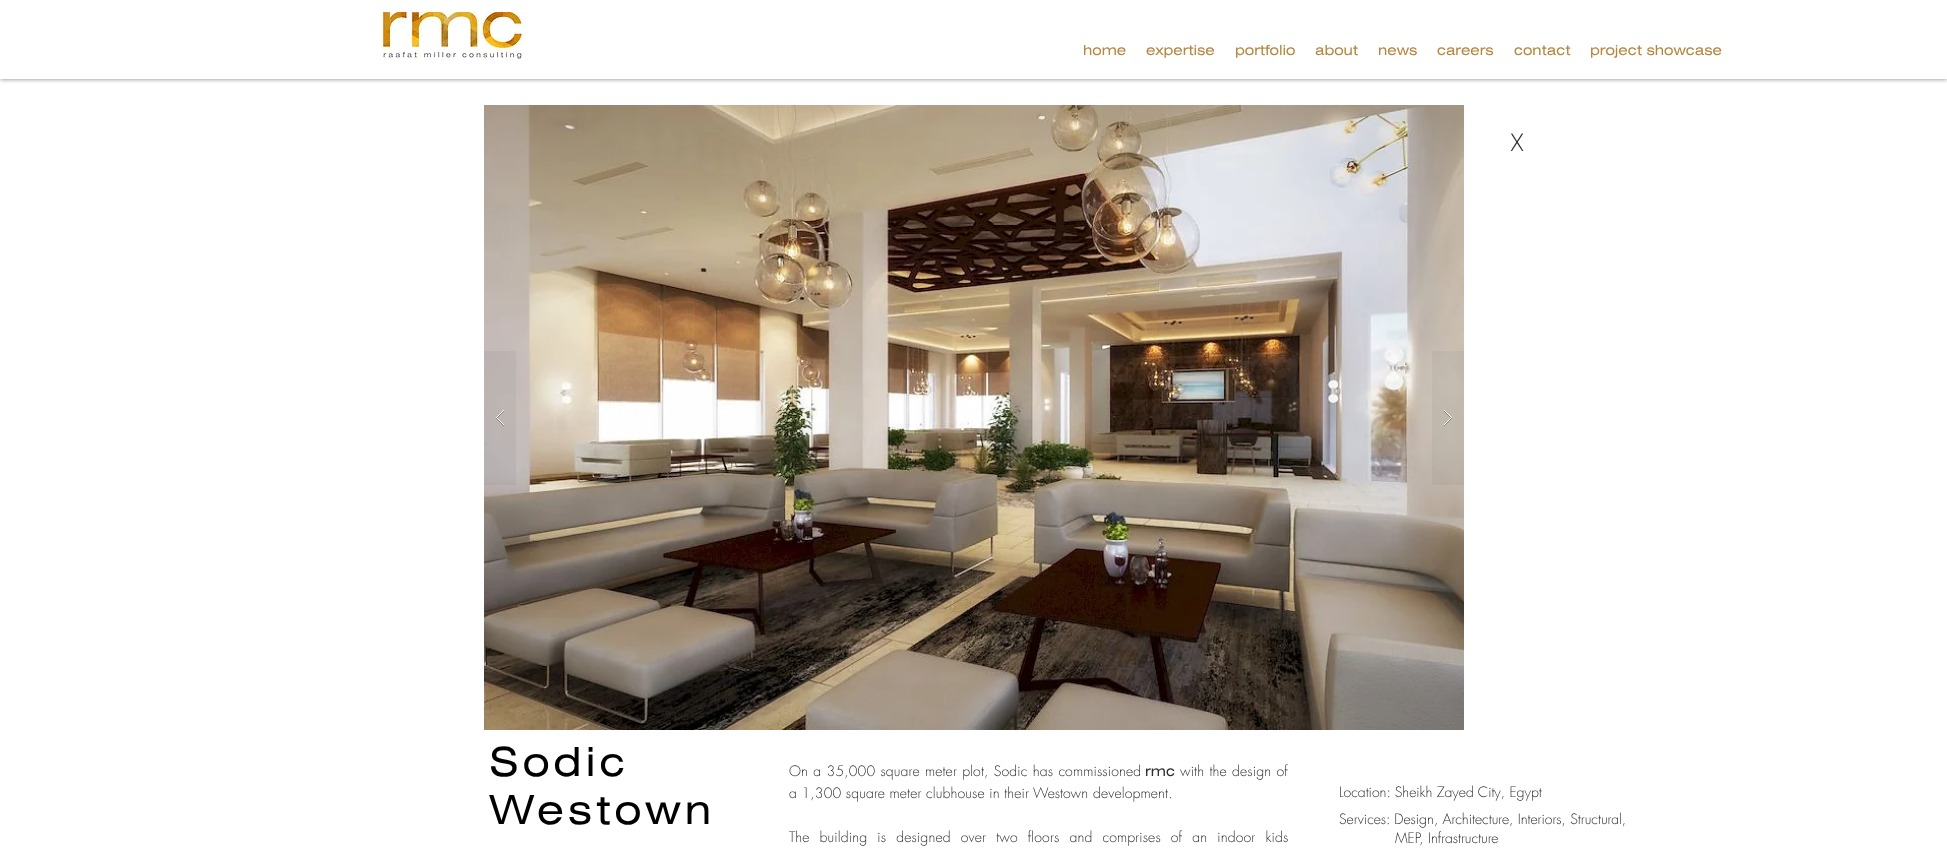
<svg xmlns="http://www.w3.org/2000/svg" width="1947" height="858" viewBox="0 0 1947 858">
  <defs>
    <clipPath id="clip1"><rect x="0" y="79" width="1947" height="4"/></clipPath>
    <filter id="blur1" x="-50%" y="-200%" width="200%" height="500%"><feGaussianBlur stdDeviation="2.5"/></filter>
  </defs>
  <rect width="100%" height="100%" fill="#ffffff"/>
  <g clip-path="url(#clip1)">
    <rect x="0" y="0" width="1947" height="79" fill="#000000" fill-opacity="0.5" filter="url(#blur1)"/>
  </g>
  <image x="381" y="12" width="146" height="48" href="img1.png"/>
  <text x="1083" y="55" font-family="'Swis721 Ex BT'" font-size="14" fill="#b5863e">home</text>
  <text x="1146" y="55" font-family="'Swis721 Ex BT'" font-size="14" fill="#b5863e">expertise</text>
  <text x="1235" y="55" font-family="'Swis721 Ex BT'" font-size="14" fill="#b5863e">portfolio</text>
  <text x="1315" y="55" font-family="'Swis721 Ex BT'" font-size="14" fill="#b5863e">about</text>
  <text x="1378" y="55" font-family="'Swis721 Ex BT'" font-size="14" fill="#b5863e">news</text>
  <text x="1437" y="55" font-family="'Swis721 Ex BT'" font-size="14" fill="#b5863e">careers</text>
  <text x="1514" y="55" font-family="'Swis721 Ex BT'" font-size="14" fill="#b5863e">contact</text>
  <text x="1590" y="55" font-family="'Swis721 Ex BT'" font-size="14" fill="#b5863e">project showcase</text>
  <image x="484" y="105" width="980" height="625" href="img2.png"/>
  <rect x="484" y="351" width="32" height="134" fill="#2f2e2e" fill-opacity="0.05"/>
  <image x="496" y="410" width="8" height="16" href="img3.png"/>
  <rect x="1432" y="351" width="32" height="134" fill="#2f2e2e" fill-opacity="0.05"/>
  <image x="1444" y="410" width="8" height="16" href="img4.png"/>
  <text x="1510" y="151" font-family="'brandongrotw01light'" font-size="25" font-weight="300" fill="#2f2e2e">X</text>
  <text x="489" y="776" font-family="'Swis721 Ex BT'" font-size="40" letter-spacing="4" fill="#000000">Sodic</text>
  <text x="489" y="824" font-family="'Swis721 Ex BT'" font-size="40" letter-spacing="4" fill="#000000">Westown</text>
  <text x="789" y="776" word-spacing="0.75" font-family="futura" font-size="14" font-weight="300" letter-spacing="0.15" fill="#2f2e2e">On a 35,000 square meter plot, Sodic has commissioned</text>
  <text x="1145" y="776" font-family="'Swis721 Ex BT'" font-size="14" letter-spacing="0.15" fill="#2f2e2e">rmc</text>
  <text x="1180" y="776" word-spacing="0.75" font-family="futura" font-size="14" font-weight="300" letter-spacing="0.15" fill="#2f2e2e">with the design of</text>
  <text x="789" y="798" font-family="futura" font-size="14" font-weight="300" letter-spacing="0.15" fill="#2f2e2e">a 1,300 square meter clubhouse in their</text>
  <text x="1033" y="798" font-family="futura" font-size="14" font-weight="300" fill="#2f2e2e">Westown</text>
  <text x="1093" y="798" font-family="futura" font-size="14" font-weight="300" letter-spacing="0.15" fill="#2f2e2e">development.</text>
  <text x="789" y="842" word-spacing="5.6" font-family="futura" font-size="14" font-weight="300" letter-spacing="0.15" fill="#2f2e2e">The building is designed over two floors and comprises of an indoor kids</text>
  <text x="1339" y="797" font-family="futura" font-size="14" font-weight="300" fill="#2f2e2e">Location: Sheikh Zayed City, Egypt</text>
  <text x="1339" y="824" font-family="futura" font-size="14" font-weight="300" fill="#2f2e2e">Services: Design, Architecture, Interiors, Structural,</text>
  <text x="1395" y="843" font-family="futura" font-size="14" font-weight="300" fill="#2f2e2e">MEP, Infrastructure</text>
</svg>
